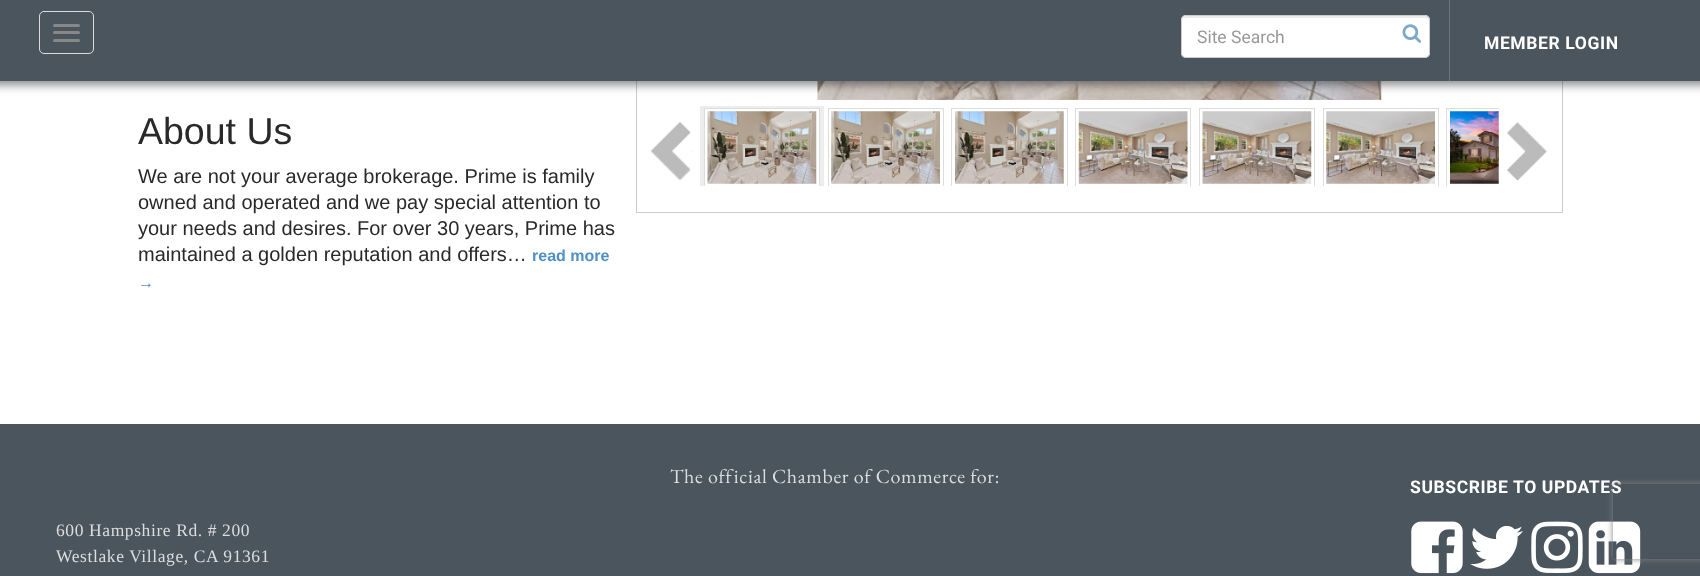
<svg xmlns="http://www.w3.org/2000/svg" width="1700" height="576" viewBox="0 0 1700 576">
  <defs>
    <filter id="blur1" x="-50%" y="-200%" width="200%" height="500%"><feGaussianBlur stdDeviation="5"/></filter>
    <clipPath id="clip1"><rect x="700" y="106" width="124" height="80"/></clipPath>
    <clipPath id="clip2"><rect x="824" y="106" width="124" height="80"/></clipPath>
    <clipPath id="clip3"><rect x="948" y="106" width="123" height="80"/></clipPath>
    <clipPath id="clip4"><rect x="1071" y="106" width="124" height="80"/></clipPath>
    <clipPath id="clip5"><rect x="1195" y="106" width="124" height="80"/></clipPath>
    <clipPath id="clip6"><rect x="1319" y="106" width="124" height="80"/></clipPath>
    <clipPath id="clip7"><rect x="1443" y="106" width="56" height="80"/></clipPath>
    <clipPath id="clip8"><path d="M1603 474H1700V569H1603ZM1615.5 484H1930.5C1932 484 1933 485 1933 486.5V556.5C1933 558 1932 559 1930.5 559H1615.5C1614 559 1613 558 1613 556.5V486.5C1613 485 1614 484 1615.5 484Z" clip-rule="evenodd"/></clipPath>
    <filter id="blur2" x="-50%" y="-200%" width="200%" height="500%"><feGaussianBlur stdDeviation="3"/></filter>
  </defs>
  <rect width="100%" height="100%" fill="#ffffff"/>
  <rect x="636.5" y="-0.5" width="926" height="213" fill="none" stroke="#cccccc"/>
  <image x="817" y="81" width="565" height="19" href="img2.png"/>
  <rect x="-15" y="4" width="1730" height="81" fill="#000000" fill-opacity="0.46" filter="url(#blur1)"/>
  <rect x="0" y="0" width="1700" height="81" fill="#4b555e"/>
  <rect x="39.5" y="11.5" width="54" height="42" rx="4.5" fill="none" stroke="#dddddd"/>
  <rect x="53" y="24" width="27" height="3" rx="1.5" fill="#888888"/>
  <rect x="53" y="31" width="27" height="3" rx="1.5" fill="#888888"/>
  <rect x="53" y="39" width="27" height="3" rx="1.5" fill="#888888"/>
  <rect x="1181" y="15" width="249" height="43" rx="5" fill="#ffffff"/>
  <path d="M1186 18H1425C1427 18 1429 19 1429 21V20C1429 18 1427 16 1425 16H1187C1185 16 1184 17 1183 19Z" fill="#ececec"/>
  <rect x="1181.5" y="15.5" width="248" height="42" rx="4.5" fill="none" stroke="#cccccc"/>
  <text x="1197" y="43" font-family="Roboto" font-size="17.5" fill="#999999">Site Search</text>
  <image x="1402" y="24" width="19" height="19" href="img1.png"/>
  <rect x="1449" y="0" width="1" height="81" fill="#6d757d"/>
  <text x="1484" y="49" font-family="Roboto" font-size="17.5" font-weight="bold" letter-spacing="0.6" fill="#ffffff">MEMBER LOGIN</text>
  <text x="138" y="144" font-family="Liberation Sans" font-size="37.5" fill="#292929">About Us</text>
  <text x="138" y="183" font-family="Liberation Sans" font-size="20" fill="#292929">We are not your average brokerage. Prime is family</text>
  <text x="138" y="209" font-family="Liberation Sans" font-size="20" fill="#292929">owned and operated and we pay special attention to</text>
  <text x="138" y="235" font-family="Liberation Sans" font-size="20" fill="#292929">your needs and desires. For over 30 years, Prime has</text>
  <text x="138" y="261" font-family="Liberation Sans" font-size="20" fill="#292929">maintained a golden reputation and offers…</text>
  <text x="532" y="261" font-family="Liberation Sans" font-size="16" font-weight="bold" fill="#4f90c9">read more</text>
  <text x="138" y="288" font-family="Liberation Sans" font-size="16" font-weight="bold" fill="#4f90c9">→</text>
  <image x="651" y="122" width="42" height="59" href="img3.png"/>
  <rect x="700" y="106" width="124" height="80" fill="#ededed"/>
  <rect x="705" y="109" width="114" height="77" fill="#ffffff"/>
  <g clip-path="url(#clip1)">
    <rect x="704.5" y="108.5" width="115" height="79" fill="none" stroke="#dddddd"/>
  </g>
  <image x="707" y="111" width="110" height="73" href="img4.png"/>
  <g clip-path="url(#clip2)">
    <rect x="828.5" y="108.5" width="115" height="79" fill="none" stroke="#dddddd"/>
  </g>
  <image x="831" y="111" width="109" height="73" href="img5.png"/>
  <g clip-path="url(#clip3)">
    <rect x="951.5" y="108.5" width="116" height="79" fill="none" stroke="#dddddd"/>
  </g>
  <image x="955" y="111" width="109" height="73" href="img6.png"/>
  <g clip-path="url(#clip4)">
    <rect x="1075.5" y="108.5" width="115" height="79" fill="none" stroke="#dddddd"/>
  </g>
  <image x="1078" y="111" width="110" height="73" href="img7.png"/>
  <g clip-path="url(#clip5)">
    <rect x="1199.5" y="108.5" width="115" height="79" fill="none" stroke="#dddddd"/>
  </g>
  <image x="1202" y="111" width="110" height="73" href="img8.png"/>
  <g clip-path="url(#clip6)">
    <rect x="1323.5" y="108.5" width="115" height="79" fill="none" stroke="#dddddd"/>
  </g>
  <image x="1326" y="111" width="109" height="73" href="img9.png"/>
  <g clip-path="url(#clip7)">
    <rect x="1446.5" y="108.5" width="117" height="79" fill="none" stroke="#dddddd"/>
  </g>
  <image x="1450" y="111" width="49" height="73" href="img10.png"/>
  <image x="1507" y="122" width="40" height="59" href="img11.png"/>
  <rect x="0" y="424" width="1700" height="152" fill="#4b555e"/>
  <text x="670" y="483" font-family="EB Garamond" font-size="20" letter-spacing="0.6" fill="#dbdddf">The official Chamber of Commerce for:</text>
  <text x="1410" y="493" font-family="Roboto" font-size="17.5" font-weight="bold" letter-spacing="0.6" fill="#ffffff">SUBSCRIBE TO UPDATES</text>
  <image x="1411" y="521" width="52" height="53" href="img12.png"/>
  <image x="1470" y="525" width="53" height="44" href="img13.png"/>
  <image x="1531" y="521" width="52" height="52" href="img14.png"/>
  <image x="1588" y="521" width="53" height="53" href="img15.png"/>
  <text x="56" y="536" font-family="Liberation Serif" font-size="17.5" letter-spacing="0.6" fill="#dbdddf">600 Hampshire Rd. # 200</text>
  <text x="56" y="562" font-family="Liberation Serif" font-size="17.5" letter-spacing="0.6" fill="#dbdddf">Westlake Village, CA 91361</text>
  <g clip-path="url(#clip8)">
    <rect x="1613" y="484" width="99" height="75" rx="2.5" fill="#808080" filter="url(#blur2)"/>
  </g>
</svg>
